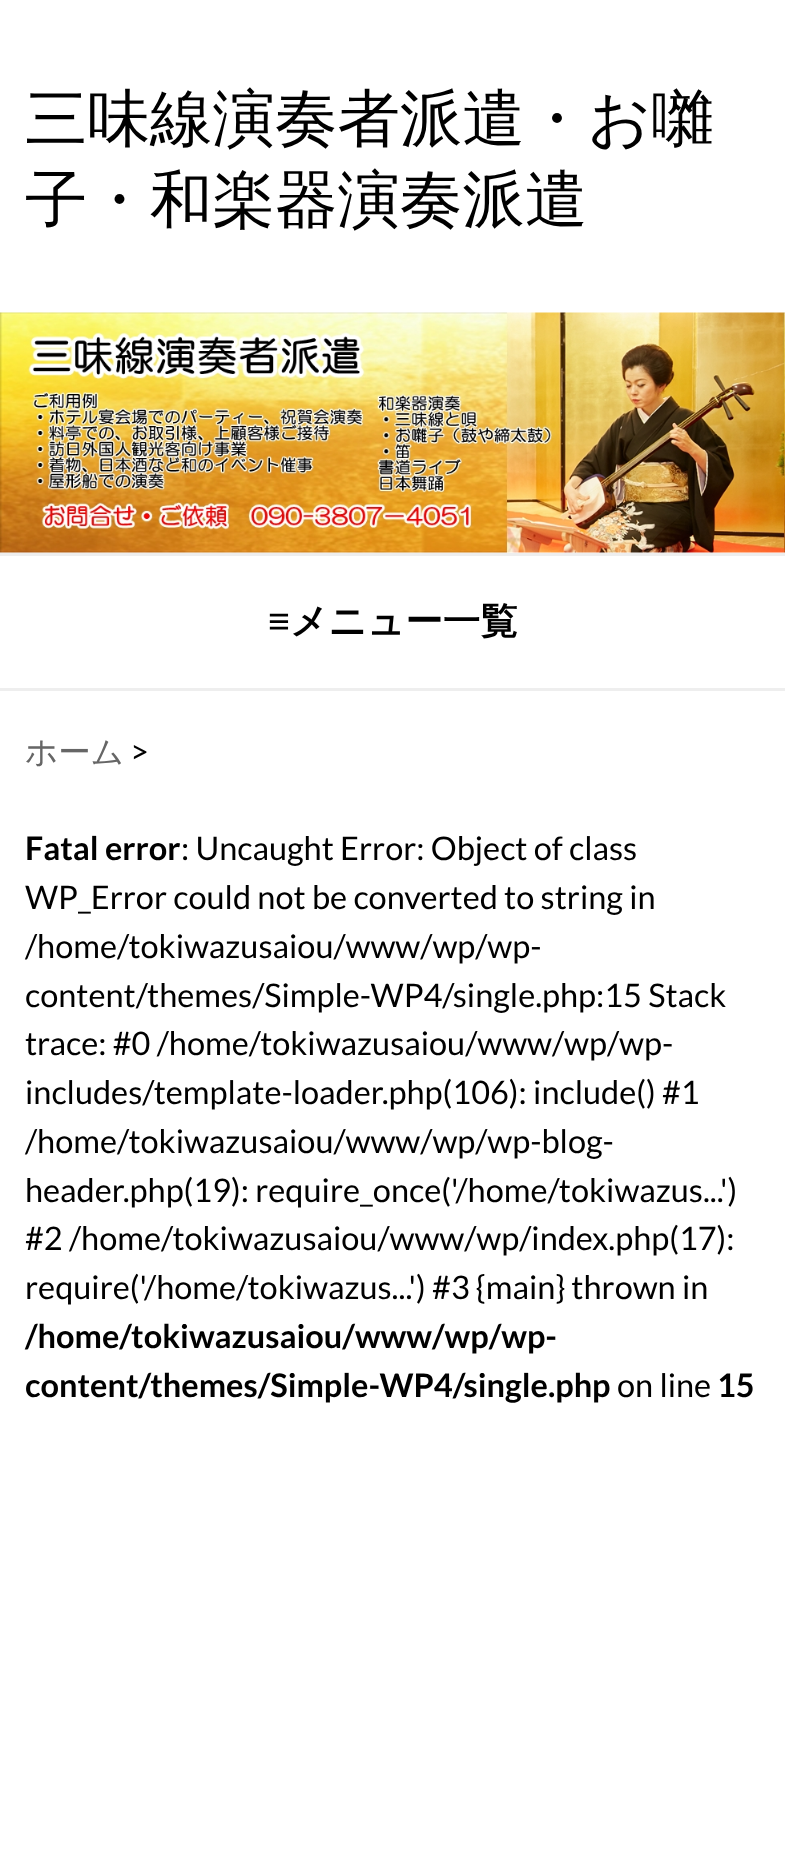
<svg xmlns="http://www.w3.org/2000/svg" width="785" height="1857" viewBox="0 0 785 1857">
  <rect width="100%" height="100%" fill="#ffffff"/>
  <text x="25" y="140" font-family="WenQuanYi Zen Hei" font-size="62.5" font-weight="500" fill="#000000">三味線演奏者派遣・お囃</text>
  <text x="25" y="221" font-family="WenQuanYi Zen Hei" font-size="62.5" font-weight="500" fill="#000000">子・和楽器演奏派遣</text>
  <image x="0" y="312" width="785" height="241" href="img1.png"/>
  <rect x="0" y="553" width="785" height="3" fill="#eeeeee"/>
  <rect x="0" y="688" width="785" height="3" fill="#eeeeee"/>
  <text x="268" y="634" font-family="Liberation Sans" font-size="37.5" font-weight="bold" fill="#000000">≡</text>
  <text x="290" y="634" font-family="WenQuanYi Zen Hei" font-size="37.5" font-weight="bold" fill="#000000">メニュー一覧</text>
  <text x="25" y="763" font-family="WenQuanYi Zen Hei" font-size="32.5" font-weight="500" fill="#666666">ホーム</text>
  <text x="130" y="763" font-family="Lato" font-size="32.5" fill="#000000">&gt;</text>
  <text x="25" y="860" font-family="Lato" font-size="32.5" font-weight="bold" fill="#000000">Fatal error</text>
  <text x="181" y="860" font-family="Lato" font-size="32.5" fill="#000000">: Uncaught Error: Object of class</text>
  <text x="25" y="909" font-family="Lato" font-size="32.5" fill="#000000">WP_Error could not be converted to string in</text>
  <text x="25" y="958" font-family="Lato" font-size="32.5" fill="#000000">/home/tokiwazusaiou/www/wp/wp-</text>
  <text x="25" y="1007" font-family="Lato" font-size="32.5" fill="#000000">content/themes/Simple-WP4/single.php:15 Stack</text>
  <text x="25" y="1055" font-family="Lato" font-size="32.5" fill="#000000">trace: #0 /home/tokiwazusaiou/www/wp/wp-</text>
  <text x="25" y="1104" font-family="Lato" font-size="32.5" fill="#000000">includes/template-loader.php(106): include() #1</text>
  <text x="25" y="1153" font-family="Lato" font-size="32.5" fill="#000000">/home/tokiwazusaiou/www/wp/wp-blog-</text>
  <text x="25" y="1202" font-family="Lato" font-size="32.5" fill="#000000">header.php(19): require_once('/home/tokiwazus...')</text>
  <text x="25" y="1250" font-family="Lato" font-size="32.5" fill="#000000">#2 /home/tokiwazusaiou/www/wp/index.php(17):</text>
  <text x="25" y="1299" font-family="Lato" font-size="32.5" fill="#000000">require('/home/tokiwazus...') #3 {main} thrown in</text>
  <text x="25" y="1348" font-family="Lato" font-size="32.5" font-weight="bold" fill="#000000">/home/tokiwazusaiou/www/wp/wp-</text>
  <text x="25" y="1397" font-family="Lato" font-size="32.5" font-weight="bold" fill="#000000">content/themes/Simple-WP4/single.php</text>
  <text x="617" y="1397" font-family="Lato" font-size="32.5" fill="#000000">on line</text>
  <text x="717" y="1397" font-family="Lato" font-size="32.5" font-weight="bold" fill="#000000">15</text>
</svg>
